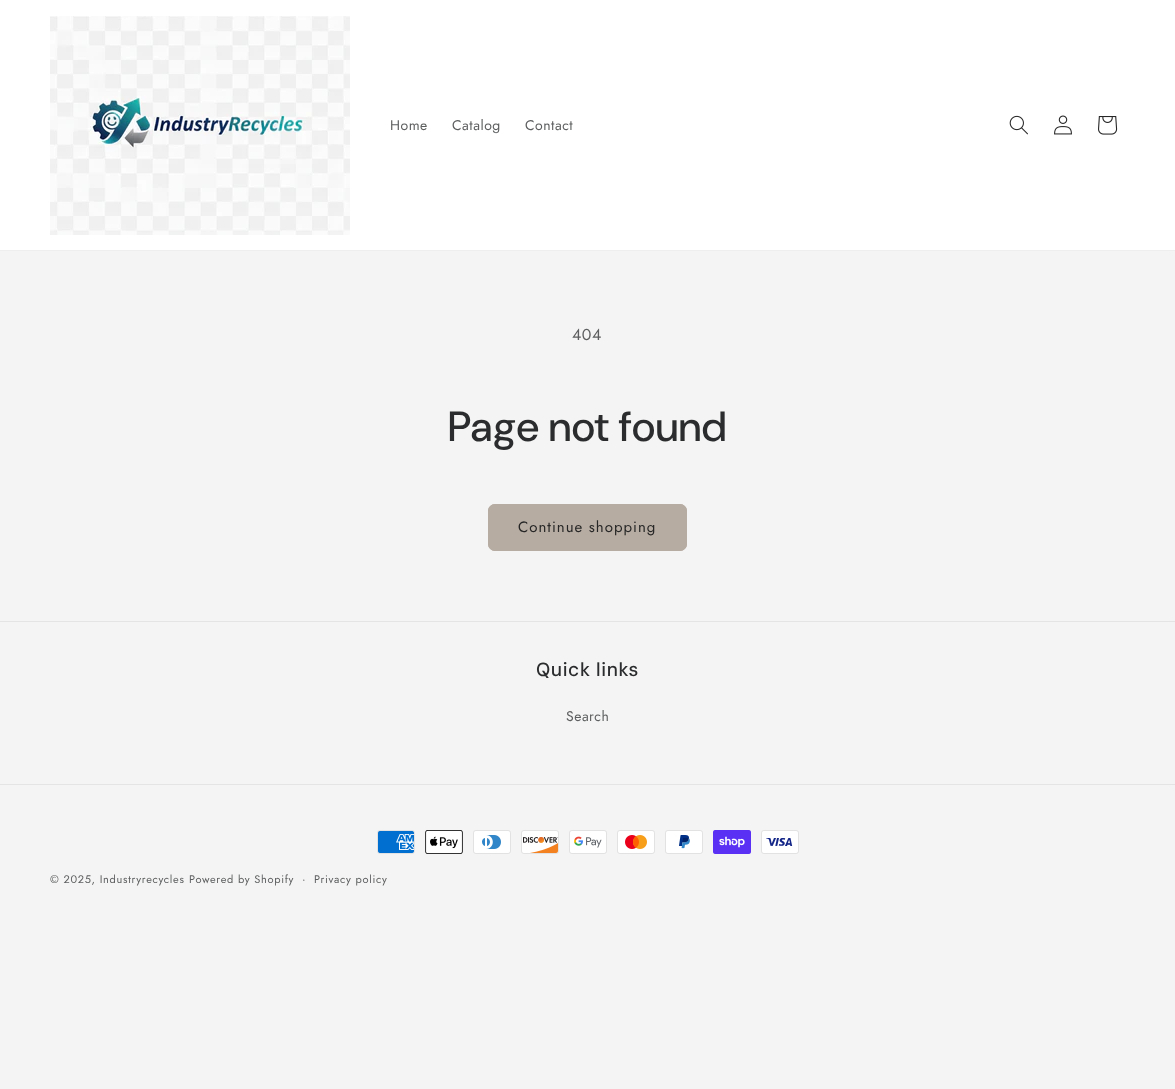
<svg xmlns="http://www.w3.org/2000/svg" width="1175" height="1089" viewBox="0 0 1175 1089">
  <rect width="100%" height="100%" fill="#f4f4f4"/>
  <rect x="0" y="0" width="1175" height="250" fill="#ffffff"/>
  <rect x="0" y="250" width="1175" height="1" fill="#eeeeee"/>
  <image x="50" y="16" width="300" height="219" href="img1.png"/>
  <text x="390" y="130" font-family="Jost" font-size="14" letter-spacing="0.5" fill="#5d5e5f">Home</text>
  <text x="452" y="130" font-family="Jost" font-size="14" letter-spacing="0.5" fill="#5d5e5f">Catalog</text>
  <text x="525" y="130" font-family="Jost" font-size="14" letter-spacing="0.5" fill="#5d5e5f">Contact</text>
  <image x="1009" y="115" width="19" height="20" href="img2.png"/>
  <image x="1054" y="115" width="18" height="20" href="img3.png"/>
  <image x="1098" y="116" width="20" height="19" href="img4.png"/>
  <text x="572" y="340" font-family="Jost" font-size="16" letter-spacing="0.5" fill="#5d5e5f">404</text>
  <text x="448" y="441" font-family="DM Sans" font-size="42" font-weight="500" letter-spacing="0.6" fill="#2b2c2d">Page not found</text>
  <rect x="488" y="504" width="199" height="47" rx="7" fill="#b7aca2"/>
  <rect x="488.5" y="504.5" width="198" height="46" rx="6.5" fill="none" stroke="#b7aca2"/>
  <text x="518" y="532" font-family="Jost" font-size="15" letter-spacing="1" fill="#262626">Continue shopping</text>
  <rect x="0" y="621" width="1175" height="1" fill="#e4e4e4"/>
  <text x="536" y="676" font-family="'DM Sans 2'" font-size="19" font-weight="500" letter-spacing="0.6" fill="#2b2c2d">Quick links</text>
  <text x="566" y="721" font-family="Jost" font-size="14" letter-spacing="0.5" fill="#5d5e5f">Search</text>
  <rect x="0" y="784" width="1175" height="1" fill="#e4e4e4"/>
  <image x="377" y="830" width="38" height="24" href="img5.png"/>
  <image x="425" y="830" width="38" height="24" href="img6.png"/>
  <image x="473" y="830" width="38" height="24" href="img7.png"/>
  <image x="521" y="830" width="38" height="24" href="img8.png"/>
  <image x="569" y="830" width="38" height="24" href="img9.png"/>
  <image x="617" y="830" width="38" height="24" href="img10.png"/>
  <image x="665" y="830" width="38" height="24" href="img11.png"/>
  <image x="713" y="830" width="38" height="24" href="img12.png"/>
  <image x="761" y="830" width="38" height="24" href="img13.png"/>
  <text x="50" y="883" font-family="Jost" font-size="11" letter-spacing="0.7" fill="#5d5e5f">© 2025, Industryrecycles</text>
  <text x="189" y="883" font-family="Jost" font-size="11" letter-spacing="0.7" fill="#5d5e5f">Powered by Shopify</text>
  <text x="302" y="883" font-family="Jost" font-size="12" letter-spacing="0.7" fill="#5d5e5f">·</text>
  <text x="314" y="883" font-family="Jost" font-size="11" letter-spacing="0.7" fill="#5d5e5f">Privacy policy</text>
</svg>
